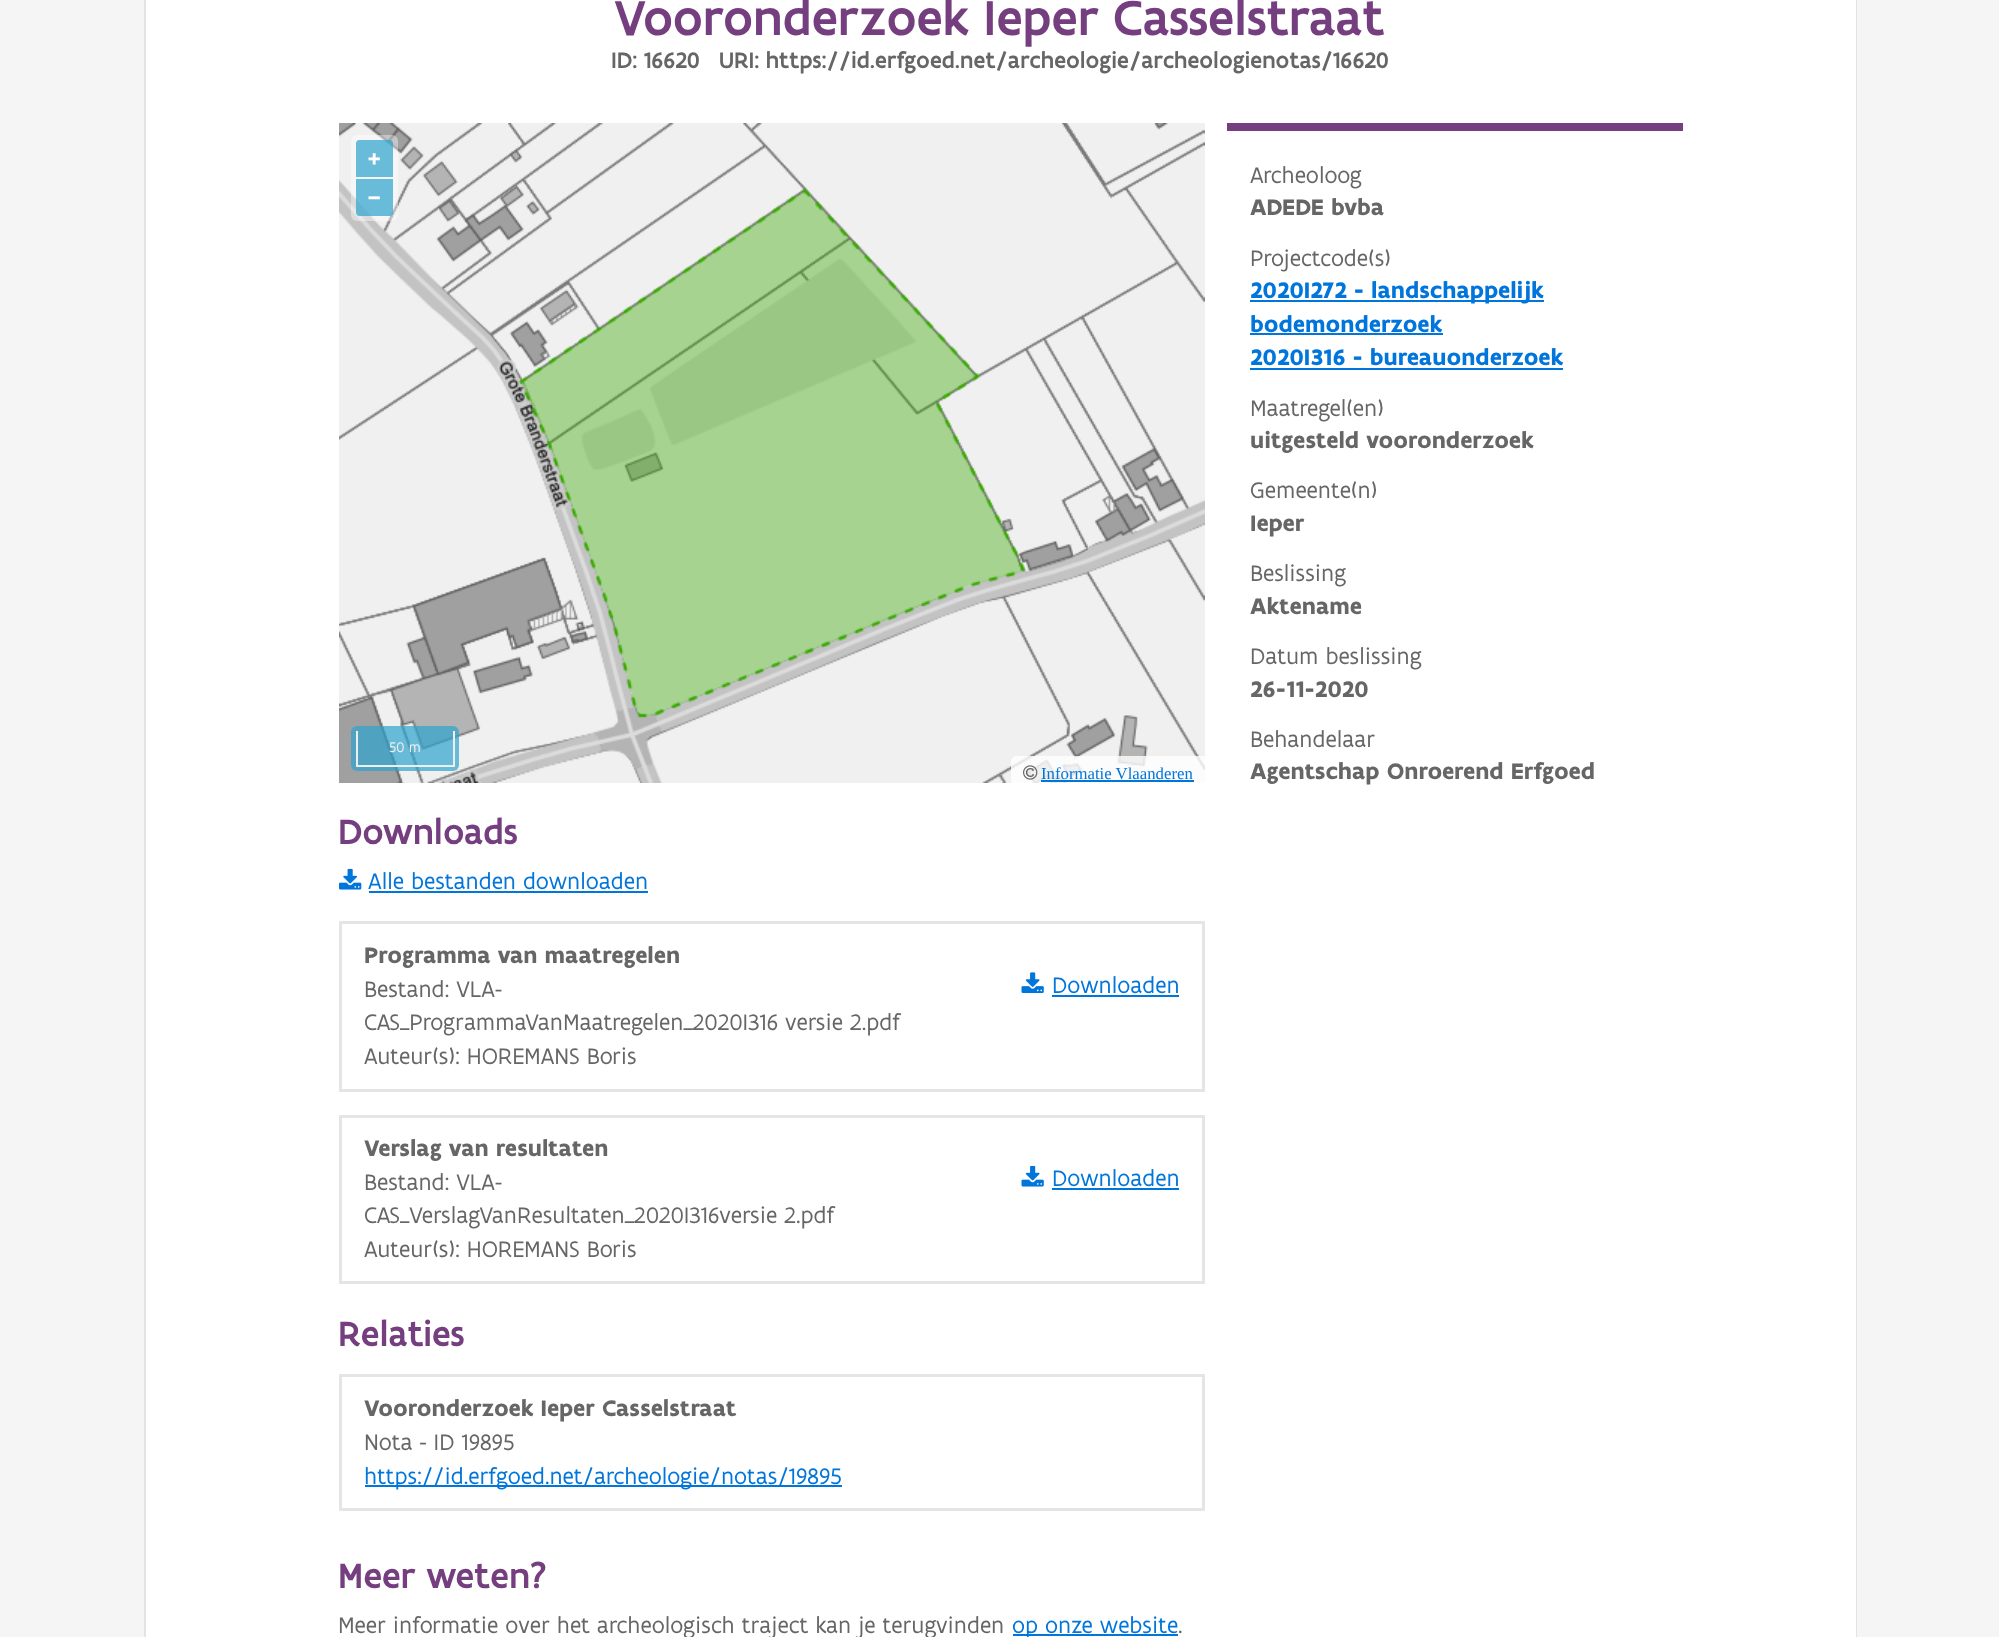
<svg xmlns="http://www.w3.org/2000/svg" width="1999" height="1637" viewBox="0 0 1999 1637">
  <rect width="100%" height="100%" fill="#f5f5f5"/>
  <rect x="146" y="0" width="1710" height="1637" fill="#ffffff"/>
  <path d="M1857-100V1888L1856 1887V-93Z" fill="#e3e3e3"/>
  <path d="M144 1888V-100L146-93V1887Z" fill="#e3e3e3"/>
  <text x="614" y="35" font-family="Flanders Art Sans" font-size="52.5" font-weight="500" fill="#753f7f">Vooronderzoek Ieper Casselstraat</text>
  <text x="611" y="68" font-family="Flanders Art Sans" font-size="24" font-weight="500" fill="#666666" xml:space="preserve">ID: 16620   URI: https://id.erfgoed.net/archeologie/archeologienotas/16620</text>
  <image x="339" y="123" width="866" height="660" href="img1.png"/>
  <rect x="351" y="135" width="47" height="86" rx="6" fill="#ffffff" fill-opacity="0.4"/>
  <path d="M359 140H390C391.5 140 393 141.5 393 143V177H356V143C356 141.5 357.5 140 359 140Z" fill="#2da3ce" fill-opacity="0.7"/>
  <text x="367" y="166" font-family="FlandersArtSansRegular" font-size="27" font-weight="bold" fill="#ffffff">+</text>
  <path d="M356 179H393V213C393 214.5 391.5 216 390 216H359C357.5 216 356 214.5 356 213Z" fill="#2da3ce" fill-opacity="0.7"/>
  <text x="367" y="205" font-family="FlandersArtSansRegular" font-size="27" font-weight="bold" fill="#ffffff">−</text>
  <rect x="351" y="726" width="108" height="45" rx="6" fill="#2da3ce" fill-opacity="0.7"/>
  <rect x="453" y="731" width="2" height="36" fill="#eeeeee"/>
  <rect x="356" y="765" width="99" height="2" fill="#eeeeee"/>
  <rect x="356" y="731" width="2" height="36" fill="#eeeeee"/>
  <text x="389" y="752" font-family="FlandersArtSansRegular" font-size="15" fill="#eeeeee">50 m</text>
  <path d="M1017 756H1205V783H1011V762C1011 758.5 1013.5 756 1017 756Z" fill="#ffffff" fill-opacity="0.8"/>
  <image x="1023" y="765" width="15" height="15" href="img2.png"/>
  <text x="1041" y="779" font-family="Liberation Serif" font-size="16.75" fill="#0075db">Informatie Vlaanderen</text>
  <rect x="1041" y="780" width="153" height="2" fill="#0075db"/>
  <text x="338" y="844" font-family="Flanders Art Sans" font-size="37.5" font-weight="500" fill="#753f7f">Downloads</text>
  <image x="339" y="868" width="23" height="22" href="img3.png"/>
  <text x="368" y="889" font-family="FlandersArtSansRegular" font-size="24" fill="#0075db">Alle bestanden downloaden</text>
  <rect x="369" y="891" width="279" height="2" fill="#0075db"/>
  <rect x="340.5" y="922.5" width="863" height="168" fill="none" stroke="#e5e5e5" stroke-width="3"/>
  <text x="364" y="963" font-family="Flanders Art Sans" font-size="24" font-weight="bold" fill="#666666">Programma van maatregelen</text>
  <text x="364" y="997" font-family="FlandersArtSansRegular" font-size="24" fill="#666666">Bestand: VLA-</text>
  <text x="364" y="1030" font-family="FlandersArtSansRegular" font-size="24" fill="#666666">CAS_ProgrammaVanMaatregelen_2020I316 versie 2.pdf</text>
  <text x="364" y="1064" font-family="FlandersArtSansRegular" font-size="24" fill="#666666">Auteur(s): HOREMANS Boris</text>
  <image x="1021" y="972" width="23" height="21" href="img4.png"/>
  <text x="1052" y="993" font-family="FlandersArtSansRegular" font-size="24" fill="#0075db">Downloaden</text>
  <rect x="1052" y="995" width="127" height="2" fill="#0075db"/>
  <rect x="340.5" y="1116.5" width="863" height="166" fill="none" stroke="#e5e5e5" stroke-width="3"/>
  <text x="364" y="1156" font-family="Flanders Art Sans" font-size="24" font-weight="bold" fill="#666666">Verslag van resultaten</text>
  <text x="364" y="1190" font-family="FlandersArtSansRegular" font-size="24" fill="#666666">Bestand: VLA-</text>
  <text x="364" y="1223" font-family="FlandersArtSansRegular" font-size="24" fill="#666666">CAS_VerslagVanResultaten_2020I316versie 2.pdf</text>
  <text x="364" y="1257" font-family="FlandersArtSansRegular" font-size="24" fill="#666666">Auteur(s): HOREMANS Boris</text>
  <image x="1021" y="1165" width="23" height="22" href="img5.png"/>
  <text x="1052" y="1186" font-family="FlandersArtSansRegular" font-size="24" fill="#0075db">Downloaden</text>
  <rect x="1052" y="1188" width="127" height="2" fill="#0075db"/>
  <text x="338" y="1346" font-family="Flanders Art Sans" font-size="37.5" font-weight="500" fill="#753f7f">Relaties</text>
  <rect x="340.5" y="1375.5" width="863" height="134" fill="none" stroke="#e5e5e5" stroke-width="3"/>
  <text x="364" y="1416" font-family="Flanders Art Sans" font-size="24" font-weight="bold" fill="#666666">Vooronderzoek Ieper Casselstraat</text>
  <text x="364" y="1450" font-family="FlandersArtSansRegular" font-size="24" fill="#666666">Nota - ID 19895</text>
  <rect x="365" y="1485" width="477" height="2" fill="#0075db"/>
  <text x="364" y="1484" font-family="FlandersArtSansRegular" font-size="24" fill="#0075db">https://id.erfgoed.net/archeologie/notas/19895</text>
  <rect x="1227" y="123" width="456" height="8" fill="#753f7f"/>
  <text x="1250" y="183" font-family="FlandersArtSansRegular" font-size="24" fill="#666666">Archeoloog</text>
  <text x="1250" y="215" font-family="Flanders Art Sans" font-size="24" font-weight="bold" fill="#666666">ADEDE bvba</text>
  <text x="1250" y="266" font-family="FlandersArtSansRegular" font-size="24" fill="#666666">Projectcode(s)</text>
  <rect x="1250" y="300" width="294" height="2" fill="#0075db"/>
  <text x="1250" y="298" font-family="Flanders Art Sans" font-size="24" font-weight="bold" fill="#0075db">2020I272 - landschappelijk</text>
  <text x="1250" y="332" font-family="Flanders Art Sans" font-size="24" font-weight="bold" fill="#0075db">bodemonderzoek</text>
  <rect x="1250" y="333" width="193" height="2" fill="#0075db"/>
  <text x="1250" y="365" font-family="Flanders Art Sans" font-size="24" font-weight="bold" fill="#0075db">2020I316 - bureauonderzoek</text>
  <rect x="1250" y="368" width="313" height="2" fill="#0075db"/>
  <text x="1250" y="416" font-family="FlandersArtSansRegular" font-size="24" fill="#666666">Maatregel(en)</text>
  <text x="1250" y="448" font-family="Flanders Art Sans" font-size="24" font-weight="bold" fill="#666666">uitgesteld vooronderzoek</text>
  <text x="1250" y="498" font-family="FlandersArtSansRegular" font-size="24" fill="#666666">Gemeente(n)</text>
  <text x="1250" y="531" font-family="Flanders Art Sans" font-size="24" font-weight="bold" fill="#666666">Ieper</text>
  <text x="1250" y="581" font-family="FlandersArtSansRegular" font-size="24" fill="#666666">Beslissing</text>
  <text x="1250" y="614" font-family="Flanders Art Sans" font-size="24" font-weight="bold" fill="#666666">Aktename</text>
  <text x="1250" y="664" font-family="FlandersArtSansRegular" font-size="24" fill="#666666">Datum beslissing</text>
  <text x="1250" y="697" font-family="Flanders Art Sans" font-size="24" font-weight="bold" fill="#666666">26-11-2020</text>
  <text x="1250" y="747" font-family="FlandersArtSansRegular" font-size="24" fill="#666666">Behandelaar</text>
  <text x="1250" y="779" font-family="Flanders Art Sans" font-size="24" font-weight="bold" fill="#666666">Agentschap Onroerend Erfgoed</text>
  <text x="338" y="1588" font-family="Flanders Art Sans" font-size="37.5" font-weight="500" fill="#753f7f">Meer weten?</text>
  <text x="338" y="1633" font-family="FlandersArtSansRegular" font-size="24" fill="#666666">Meer informatie over het archeologisch traject kan je terugvinden</text>
  <rect x="1013" y="1634" width="165" height="2" fill="#0075db"/>
  <text x="1012" y="1633" font-family="FlandersArtSansRegular" font-size="24" fill="#0075db">op onze website</text>
  <text x="1178" y="1633" font-family="FlandersArtSansRegular" font-size="24" fill="#666666">.</text>
</svg>
